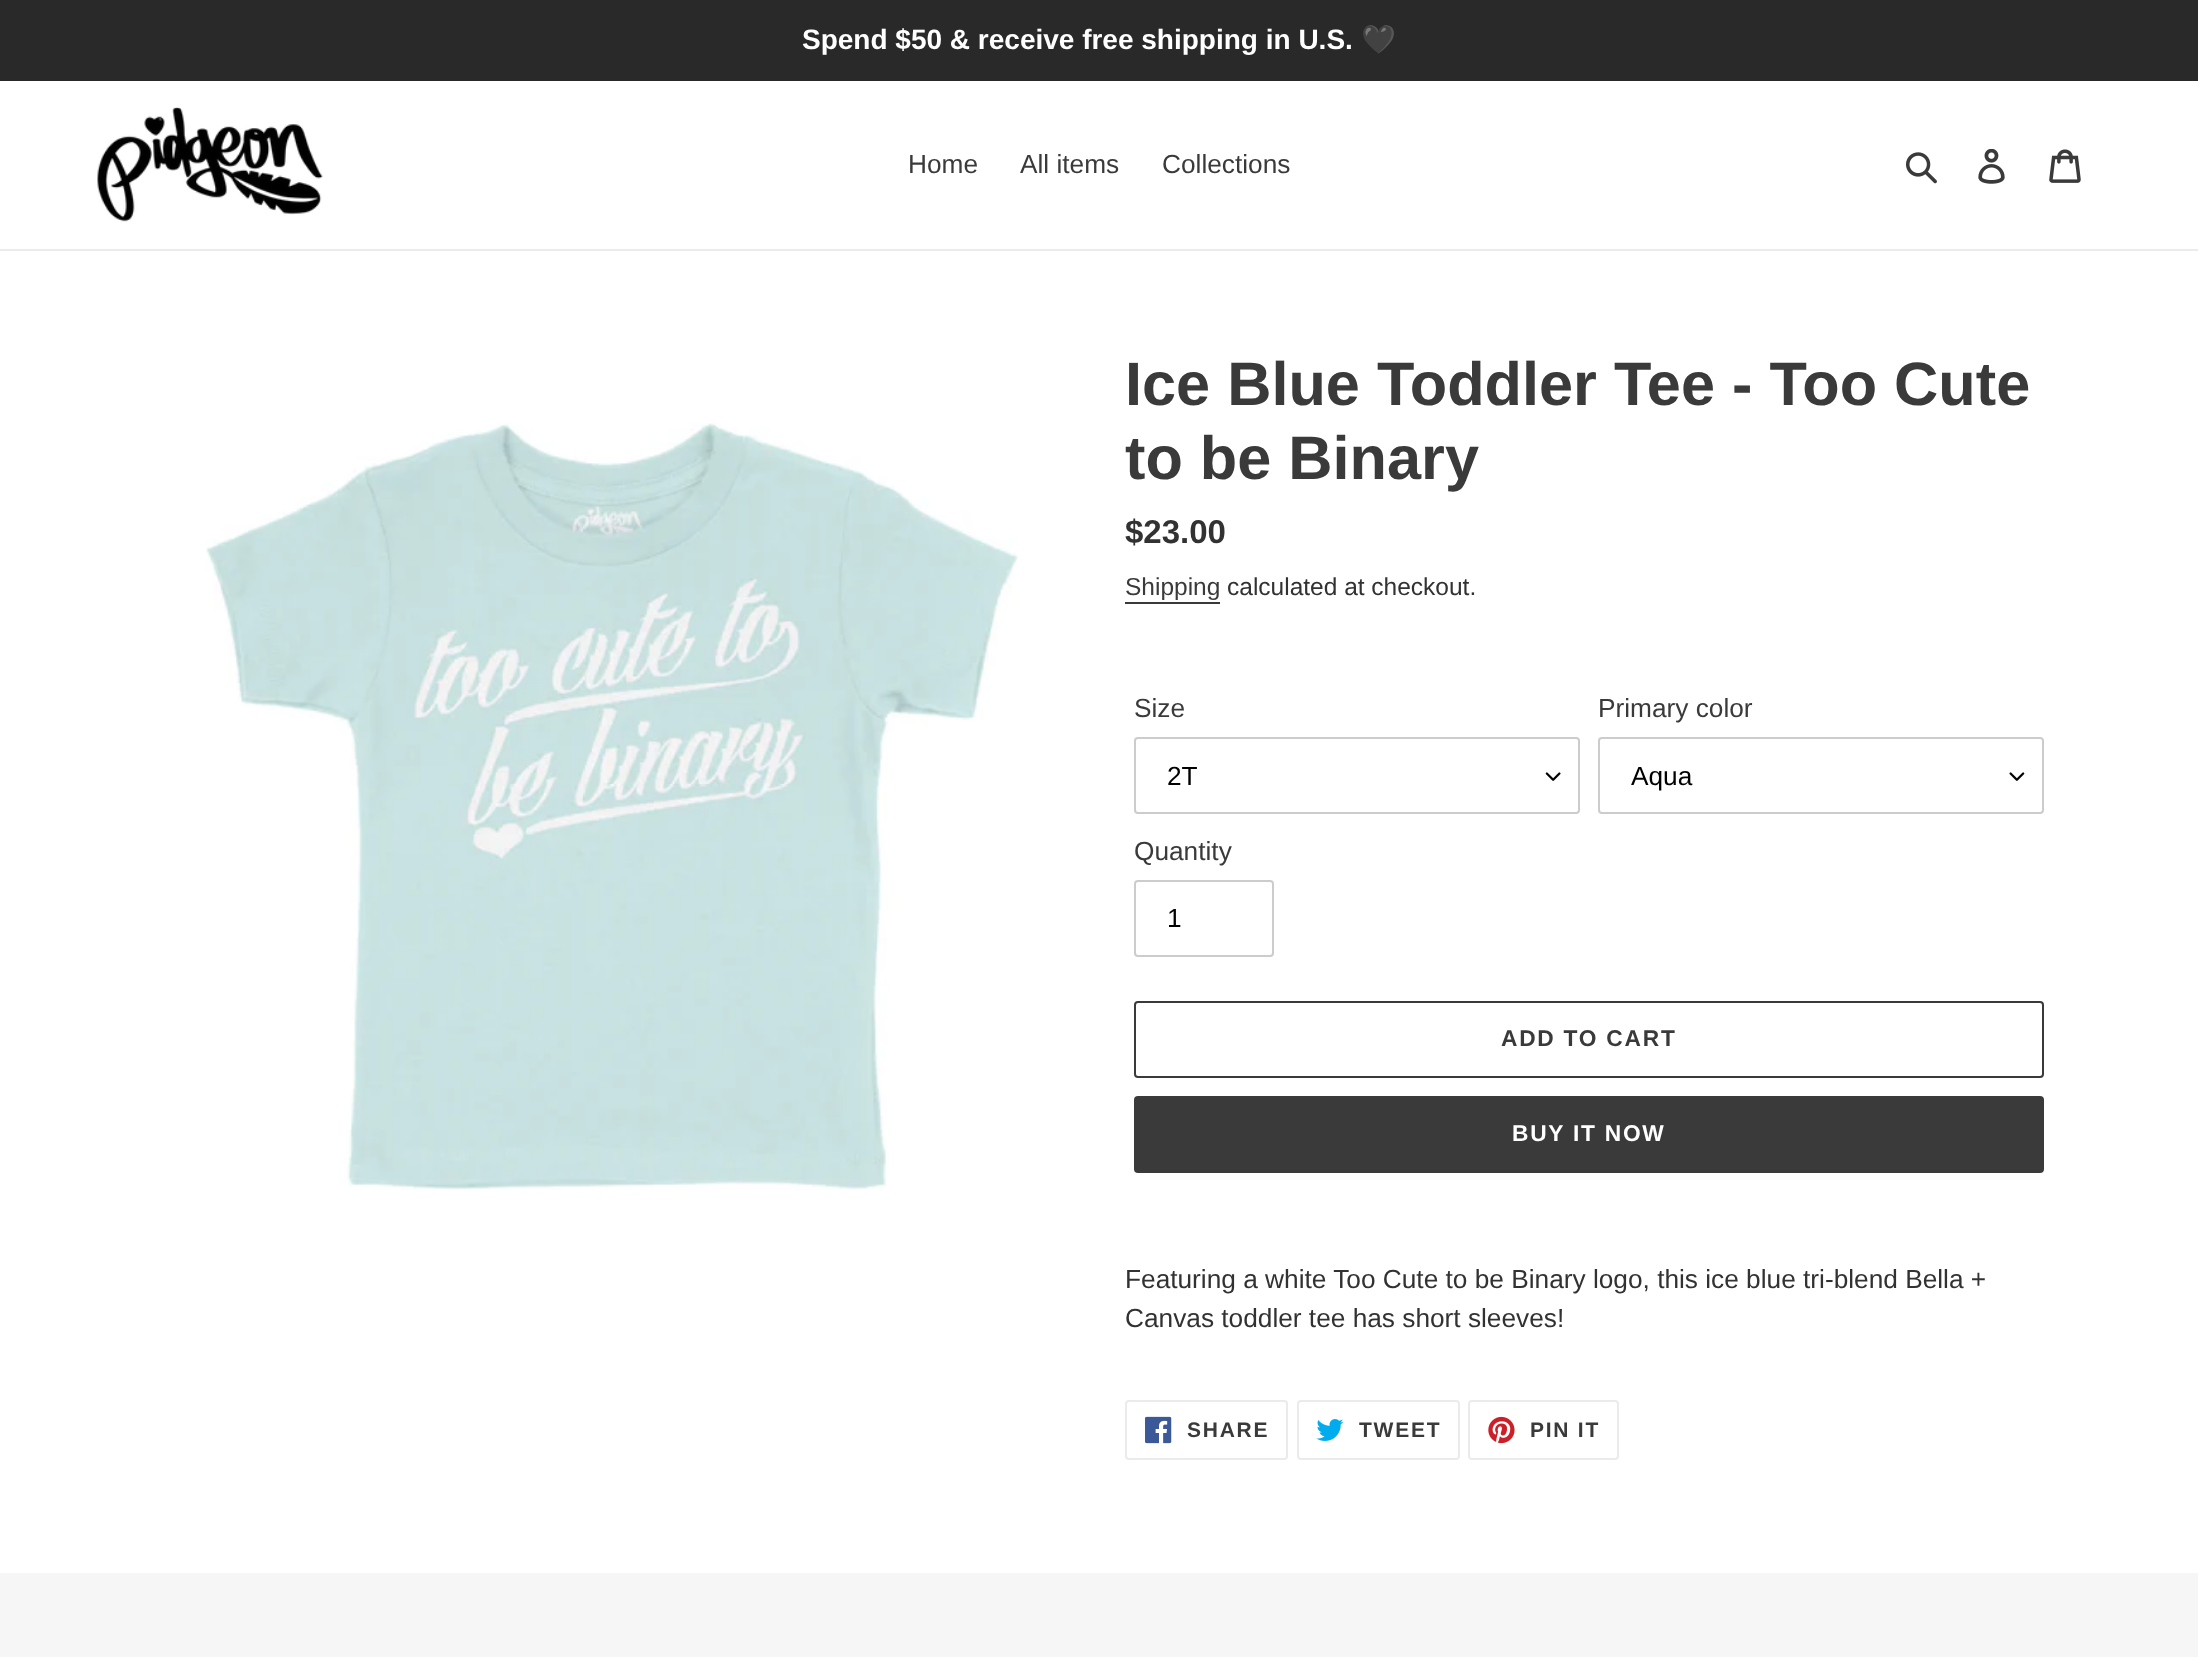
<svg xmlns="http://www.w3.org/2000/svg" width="2198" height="1657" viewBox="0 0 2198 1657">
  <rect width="100%" height="100%" fill="#ffffff"/>
  <rect x="0" y="0" width="2198" height="81" fill="#292929"/>
  <text x="802" y="49" font-family="Liberation Sans" font-size="28" font-weight="bold" fill="#ffffff">Spend $50 &amp; receive free shipping in U.S.</text>
  <text x="1361" y="49" font-family="Noto Color Emoji" font-size="28" font-weight="bold" fill="#ffffff">🖤</text>
  <rect x="0" y="249" width="2198" height="2" fill="#ebebeb"/>
  <image x="97" y="107" width="226" height="115" href="img1.png"/>
  <text x="908" y="173" font-family="Liberation Sans" font-size="26.25" fill="#3a3a3a">Home</text>
  <text x="1020" y="173" font-family="Liberation Sans" font-size="26.25" fill="#3a3a3a">All items</text>
  <text x="1162" y="173" font-family="Liberation Sans" font-size="26.25" fill="#3a3a3a">Collections</text>
  <image x="1906" y="152" width="31" height="32" href="img2.png"/>
  <image x="1978" y="149" width="27" height="35" href="img3.png"/>
  <image x="2049" y="149" width="32" height="34" href="img4.png"/>
  <image x="205" y="423" width="813" height="767" href="img5.png"/>
  <text x="1125" y="405" font-family="Liberation Sans" font-size="61.25" font-weight="bold" fill="#3a3a3a">Ice Blue Toddler Tee - Too Cute</text>
  <text x="1125" y="479" font-family="Liberation Sans" font-size="61.25" font-weight="bold" fill="#3a3a3a">to be Binary</text>
  <text x="1125" y="543" font-family="Liberation Sans" font-size="33" font-weight="bold" fill="#333232">$23.00</text>
  <text x="1125" y="595" font-family="Liberation Sans" font-size="24.5" fill="#3a3a3a">Shipping</text>
  <rect x="1125" y="602" width="95" height="2" fill="#3a3a3a"/>
  <text x="1227" y="595" font-family="Liberation Sans" font-size="24.5" fill="#333232">calculated at checkout.</text>
  <text x="1134" y="717" font-family="Liberation Sans" font-size="26.25" fill="#3a3a3a">Size</text>
  <image x="1545" y="772" width="16" height="9" href="img6.png"/>
  <rect x="1135" y="738" width="444" height="75" rx="3" fill="none" stroke="#cccccc" stroke-width="2"/>
  <text x="1167" y="785" font-family="Liberation Sans" font-size="26.25" fill="#000000">2T</text>
  <text x="1598" y="717" font-family="Liberation Sans" font-size="26.25" fill="#3a3a3a">Primary color</text>
  <image x="2009" y="772" width="16" height="9" href="img7.png"/>
  <rect x="1599" y="738" width="444" height="75" rx="3" fill="none" stroke="#cccccc" stroke-width="2"/>
  <text x="1631" y="785" font-family="Liberation Sans" font-size="26.25" fill="#000000">Aqua</text>
  <text x="1134" y="860" font-family="Liberation Sans" font-size="26.25" fill="#3a3a3a">Quantity</text>
  <rect x="1135" y="881" width="138" height="75" rx="3" fill="none" stroke="#cccccc" stroke-width="2"/>
  <text x="1167" y="927" font-family="Liberation Sans" font-size="26.25" fill="#000000">1</text>
  <rect x="1135" y="1002" width="908" height="75" rx="3" fill="none" stroke="#3a3a3a" stroke-width="2"/>
  <text x="1501" y="1046" font-family="Liberation Sans" font-size="22.75" font-weight="bold" letter-spacing="1.75" fill="#3a3a3a">ADD TO CART</text>
  <rect x="1134" y="1096" width="910" height="77" rx="4" fill="#3a3a3a"/>
  <text x="1512" y="1141" font-family="Liberation Sans" font-size="22.75" font-weight="bold" letter-spacing="1.75" fill="#ffffff">BUY IT NOW</text>
  <text x="1125" y="1288" font-family="Liberation Sans" font-size="26.25" fill="#333232">Featuring a white Too Cute to be Binary logo, this ice blue tri-blend Bella +</text>
  <text x="1125" y="1327" font-family="Liberation Sans" font-size="26.25" fill="#333232">Canvas toddler tee has short sleeves!</text>
  <rect x="1126" y="1401" width="161" height="58" rx="3" fill="none" stroke="#ebebeb" stroke-width="2"/>
  <image x="1145" y="1416" width="27" height="28" href="img8.png"/>
  <text x="1187" y="1437" font-family="Liberation Sans" font-size="21" font-weight="bold" letter-spacing="1.75" fill="#3a3a3a">SHARE</text>
  <rect x="1298" y="1401" width="161" height="58" rx="3" fill="none" stroke="#ebebeb" stroke-width="2"/>
  <image x="1316" y="1419" width="28" height="22" href="img9.png"/>
  <text x="1359" y="1437" font-family="Liberation Sans" font-size="21" font-weight="bold" letter-spacing="1.75" fill="#3a3a3a">TWEET</text>
  <rect x="1469" y="1401" width="149" height="58" rx="3" fill="none" stroke="#ebebeb" stroke-width="2"/>
  <image x="1488" y="1416" width="27" height="28" href="img10.png"/>
  <text x="1530" y="1437" font-family="Liberation Sans" font-size="21" font-weight="bold" letter-spacing="1.75" fill="#3a3a3a">PIN IT</text>
  <rect x="0" y="1573" width="2198" height="84" fill="#f6f6f6"/>
</svg>
